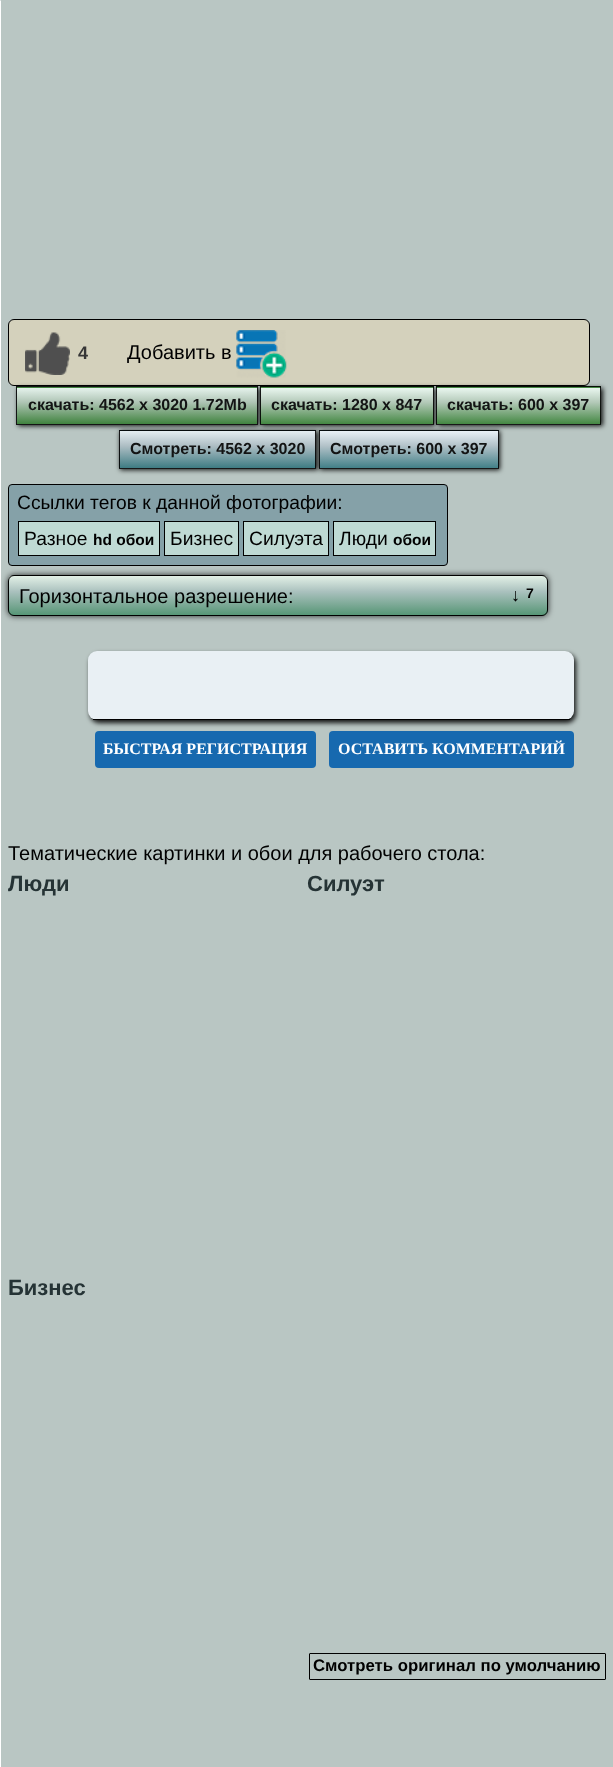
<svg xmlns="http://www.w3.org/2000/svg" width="613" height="1767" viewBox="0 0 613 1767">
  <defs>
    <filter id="blur1" x="-50%" y="-200%" width="200%" height="500%"><feGaussianBlur stdDeviation="2.5"/></filter>
    <linearGradient id="g1" gradientUnits="userSpaceOnUse" x1="137" y1="388" x2="137" y2="351"><stop offset="0" stop-color="#40833f"/><stop offset="0.6" stop-color="#aec4b4"/><stop offset="1" stop-color="#e5f2ec"/></linearGradient>
    <linearGradient id="g2" gradientUnits="userSpaceOnUse" x1="137" y1="424" x2="137" y2="388"><stop offset="0" stop-color="#40833f"/><stop offset="0.6" stop-color="#aec4b4"/><stop offset="1" stop-color="#e5f2ec"/></linearGradient>
    <clipPath id="clip1"><path d="M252 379H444V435H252ZM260 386H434V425H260Z" clip-rule="evenodd"/></clipPath>
    <linearGradient id="g3" gradientUnits="userSpaceOnUse" x1="347" y1="388" x2="347" y2="351"><stop offset="0" stop-color="#448843"/><stop offset="0.6" stop-color="#b3c9b8"/><stop offset="1" stop-color="#e9f6ef"/></linearGradient>
    <linearGradient id="g4" gradientUnits="userSpaceOnUse" x1="347" y1="424" x2="347" y2="388"><stop offset="0" stop-color="#327c30" stop-opacity="0.9"/><stop offset="0.6" stop-color="#adc4b2" stop-opacity="0.9"/><stop offset="1" stop-color="#eaf7f0" stop-opacity="0.9"/></linearGradient>
    <linearGradient id="g5" gradientUnits="userSpaceOnUse" x1="347" y1="460" x2="347" y2="424"><stop offset="0" stop-color="#327c30" stop-opacity="0.9"/><stop offset="0.6" stop-color="#adc4b2" stop-opacity="0.9"/><stop offset="1" stop-color="#eaf7f0" stop-opacity="0.9"/></linearGradient>
    <clipPath id="clip2"><path d="M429 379H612V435H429ZM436 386H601V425H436Z" clip-rule="evenodd"/></clipPath>
    <linearGradient id="g6" gradientUnits="userSpaceOnUse" x1="519" y1="388" x2="519" y2="351"><stop offset="0" stop-color="#327c30" stop-opacity="0.9"/><stop offset="0.6" stop-color="#adc4b2" stop-opacity="0.9"/><stop offset="1" stop-color="#eaf7f0" stop-opacity="0.9"/></linearGradient>
    <linearGradient id="g7" gradientUnits="userSpaceOnUse" x1="519" y1="424" x2="519" y2="388"><stop offset="0" stop-color="#327c30" stop-opacity="0.9"/><stop offset="0.6" stop-color="#adc4b2" stop-opacity="0.9"/><stop offset="1" stop-color="#eaf7f0" stop-opacity="0.9"/></linearGradient>
    <linearGradient id="g8" gradientUnits="userSpaceOnUse" x1="519" y1="460" x2="519" y2="424"><stop offset="0" stop-color="#327c30" stop-opacity="0.9"/><stop offset="0.6" stop-color="#adc4b2" stop-opacity="0.9"/><stop offset="1" stop-color="#eaf7f0" stop-opacity="0.9"/></linearGradient>
    <linearGradient id="g9" gradientUnits="userSpaceOnUse" x1="218" y1="431" x2="218" y2="395"><stop offset="0" stop-color="#3d7c82"/><stop offset="0.6" stop-color="#aebdc3"/><stop offset="1" stop-color="#e5edf1"/></linearGradient>
    <linearGradient id="g10" gradientUnits="userSpaceOnUse" x1="218" y1="468" x2="218" y2="431"><stop offset="0" stop-color="#3e7c83"/><stop offset="0.6" stop-color="#aebec4"/><stop offset="1" stop-color="#e5eef2"/></linearGradient>
    <linearGradient id="g11" gradientUnits="userSpaceOnUse" x1="218" y1="504" x2="218" y2="468"><stop offset="0" stop-color="#3e7c83"/><stop offset="0.6" stop-color="#aebec4"/><stop offset="1" stop-color="#e5eef2"/></linearGradient>
    <clipPath id="clip3"><path d="M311 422H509V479H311ZM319 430H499V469H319Z" clip-rule="evenodd"/></clipPath>
    <linearGradient id="g12" gradientUnits="userSpaceOnUse" x1="409" y1="431" x2="409" y2="395"><stop offset="0" stop-color="#428088"/><stop offset="0.6" stop-color="#b3c2c9"/><stop offset="1" stop-color="#e9f1f6"/></linearGradient>
    <linearGradient id="g13" gradientUnits="userSpaceOnUse" x1="409" y1="468" x2="409" y2="431"><stop offset="0" stop-color="#30747c" stop-opacity="0.9"/><stop offset="0.6" stop-color="#adbdc4" stop-opacity="0.9"/><stop offset="1" stop-color="#eaf2f7" stop-opacity="0.9"/></linearGradient>
    <linearGradient id="g14" gradientUnits="userSpaceOnUse" x1="409" y1="504" x2="409" y2="468"><stop offset="0" stop-color="#428087"/><stop offset="0.6" stop-color="#b2c2c8"/><stop offset="1" stop-color="#e9f1f6"/></linearGradient>
    <filter id="blur2" x="-50%" y="-200%" width="200%" height="500%"><feGaussianBlur stdDeviation="3"/></filter>
    <clipPath id="clip4"><rect x="8" y="575" width="540" height="41" rx="6"/></clipPath>
    <linearGradient id="g15" gradientUnits="userSpaceOnUse" x1="278" y1="615" x2="278" y2="576"><stop offset="0" stop-color="#579676"/><stop offset="0.6" stop-color="#aac1be"/><stop offset="1" stop-color="#e2f0e6"/></linearGradient>
  </defs>
  <rect width="100%" height="100%" fill="#ffffff"/>
  <rect x="1" y="1" width="612" height="1766" fill="#b9c6c3"/>
  <path d="M0 0H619L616 2H2Z" fill="#b9c6c3"/>
  <rect x="8.5" y="319.5" width="581" height="66" rx="5.5" fill="#d4d1bc" stroke="#000000"/>
  <image x="25" y="332" width="45" height="43" href="img1.png"/>
  <text x="78" y="359" font-family="Liberation Sans" font-size="18" font-weight="bold" fill="#363636">4</text>
  <text x="127" y="359" font-family="Liberation Sans" font-size="20" fill="#000000">Добавить в</text>
  <image x="236" y="330" width="51" height="48" href="img2.png"/>
  <rect x="18" y="388" width="241" height="38" fill="#000000" fill-opacity="0.9" filter="url(#blur1)"/>
  <rect x="16" y="387" width="242" height="1" fill="url(#g1)"/>
  <rect x="17" y="388" width="240" height="36" fill="url(#g2)"/>
  <rect x="16.5" y="386.5" width="241" height="38" fill="none" stroke="#131414"/>
  <text x="28" y="410" font-family="Liberation Sans" font-size="16" font-weight="bold" fill="#131414">скачать: 4562 x 3020 1.72Mb</text>
  <g clip-path="url(#clip1)">
    <rect x="261" y="388" width="174" height="38" fill="#000000" fill-opacity="0.9" filter="url(#blur1)"/>
  </g>
  <rect x="260" y="388" width="174" height="37" fill="#eaf7f0" fill-opacity="0.9"/>
  <rect x="260" y="386" width="174" height="2" fill="url(#g3)"/>
  <rect x="260" y="388" width="174" height="36" fill="url(#g4)"/>
  <rect x="260" y="424" width="174" height="1" fill="url(#g5)"/>
  <rect x="260.5" y="386.5" width="173" height="38" fill="none" stroke="#000000" stroke-opacity="0.9"/>
  <text x="271" y="410" font-family="Liberation Sans" font-size="16" font-weight="bold" fill="#131414">скачать: 1280 x 847</text>
  <g clip-path="url(#clip2)">
    <rect x="438" y="388" width="165" height="38" fill="#000000" fill-opacity="0.9" filter="url(#blur1)"/>
  </g>
  <rect x="436" y="386" width="165" height="39" fill="#eaf7f0" fill-opacity="0.9"/>
  <rect x="436" y="386" width="165" height="2" fill="url(#g6)"/>
  <rect x="436" y="388" width="165" height="36" fill="url(#g7)"/>
  <rect x="436" y="424" width="165" height="1" fill="url(#g8)"/>
  <rect x="436.5" y="386.5" width="164" height="38" fill="none" stroke="#000000" stroke-opacity="0.9"/>
  <text x="447" y="410" font-family="Liberation Sans" font-size="16" font-weight="bold" fill="#131414">скачать: 600 x 397</text>
  <rect x="120" y="431" width="198" height="39" fill="#000000" fill-opacity="0.9" filter="url(#blur1)"/>
  <rect x="119" y="430" width="197" height="1" fill="url(#g9)"/>
  <rect x="119" y="431" width="197" height="37" fill="url(#g10)"/>
  <rect x="119" y="468" width="197" height="1" fill="url(#g11)"/>
  <rect x="119.5" y="430.5" width="196" height="38" fill="none" stroke="#000000" stroke-opacity="0.9"/>
  <text x="130" y="454" font-family="Liberation Sans" font-size="16" font-weight="bold" fill="#131414">Смотреть: 4562 x 3020</text>
  <g clip-path="url(#clip3)">
    <rect x="320" y="431" width="180" height="39" fill="#000000" fill-opacity="0.9" filter="url(#blur1)"/>
  </g>
  <rect x="319" y="431" width="180" height="37" fill="#eaf2f7" fill-opacity="0.9"/>
  <rect x="319" y="430" width="180" height="1" fill="url(#g12)"/>
  <rect x="319" y="431" width="180" height="37" fill="url(#g13)"/>
  <rect x="319" y="468" width="180" height="1" fill="url(#g14)"/>
  <rect x="319.5" y="430.5" width="179" height="38" fill="none" stroke="#000000" stroke-opacity="0.9"/>
  <text x="330" y="454" font-family="Liberation Sans" font-size="16" font-weight="bold" fill="#131414">Смотреть: 600 x 397</text>
  <rect x="8.5" y="484.5" width="439" height="81" rx="3.5" fill="#85a1a8" stroke="#000000"/>
  <text x="17" y="509" font-family="Liberation Sans" font-size="19.25" fill="#000000">Ссылки тегов к данной фотографии:</text>
  <rect x="18.5" y="521.5" width="141" height="34" fill="#bfdad4" stroke="#000000"/>
  <text x="24" y="545" font-family="Liberation Sans" font-size="19.25" fill="#000000">Разное</text>
  <text x="93" y="545" font-family="Liberation Sans" font-size="15.5" font-weight="bold" fill="#000000">hd обои</text>
  <rect x="164.5" y="521.5" width="74" height="34" fill="#bfdad4" stroke="#000000"/>
  <text x="170" y="545" font-family="Liberation Sans" font-size="19.25" fill="#000000">Бизнес</text>
  <rect x="243.5" y="521.5" width="85" height="34" fill="#bfdad4" stroke="#000000"/>
  <text x="249" y="545" font-family="Liberation Sans" font-size="19.25" fill="#000000">Силуэта</text>
  <rect x="333.5" y="521.5" width="102" height="34" fill="#bfdad4" stroke="#000000"/>
  <text x="339" y="545" font-family="Liberation Sans" font-size="19.25" fill="#000000">Люди</text>
  <text x="393" y="545" font-family="Liberation Sans" font-size="15.5" font-weight="bold" fill="#000000">обои</text>
  <rect x="8" y="575" width="540" height="41" rx="6" fill="#000000" fill-opacity="0.8" filter="url(#blur2)"/>
  <g clip-path="url(#clip4)">
    <rect x="8" y="576" width="540" height="39" fill="url(#g15)"/>
  </g>
  <rect x="8.5" y="575.5" width="539" height="40" rx="5.5" fill="none" stroke="#000000"/>
  <text x="19" y="603" font-family="Liberation Sans" font-size="20" fill="#000000">Горизонтальное разрешение:</text>
  <text x="511" y="601" font-family="Liberation Sans" font-size="18" font-weight="bold" fill="#000000">↓</text>
  <text x="526" y="598" font-family="Liberation Sans" font-size="14" font-weight="bold" fill="#000000">7</text>
  <rect x="95" y="731" width="221" height="37" rx="4" fill="#1769af"/>
  <rect x="90" y="654" width="486" height="69" rx="9" fill="#000000" fill-opacity="0.9" filter="url(#blur1)"/>
  <rect x="88" y="651" width="486" height="69" rx="9" fill="#e9f0f4"/>
  <rect x="93" y="719" width="477" height="1" fill="#000000"/>
  <text x="103" y="754" font-family="Liberation Serif" font-size="16" font-weight="bold" fill="#ffffff">БЫСТРАЯ РЕГИСТРАЦИЯ</text>
  <rect x="329" y="731" width="245" height="37" rx="4" fill="#1769af"/>
  <text x="338" y="754" font-family="Liberation Serif" font-size="16" font-weight="bold" fill="#ffffff">ОСТАВИТЬ КОММЕНТАРИЙ</text>
  <text x="8" y="860" font-family="Liberation Sans" font-size="20" fill="#000000">Тематические картинки и обои для рабочего стола:</text>
  <text x="8" y="891" font-family="Liberation Sans" font-size="22" font-weight="bold" fill="#253335">Люди</text>
  <text x="307" y="891" font-family="Liberation Sans" font-size="22" font-weight="bold" fill="#253335">Силуэт</text>
  <text x="8" y="1295" font-family="Liberation Sans" font-size="22" font-weight="bold" fill="#253335">Бизнес</text>
  <rect x="309.5" y="1653.5" width="296" height="26" rx="0.5" fill="none" stroke="#000000"/>
  <text x="313" y="1671" font-family="Liberation Sans" font-size="16.75" font-weight="bold" fill="#000000">Смотреть оригинал по умолчанию</text>
</svg>
